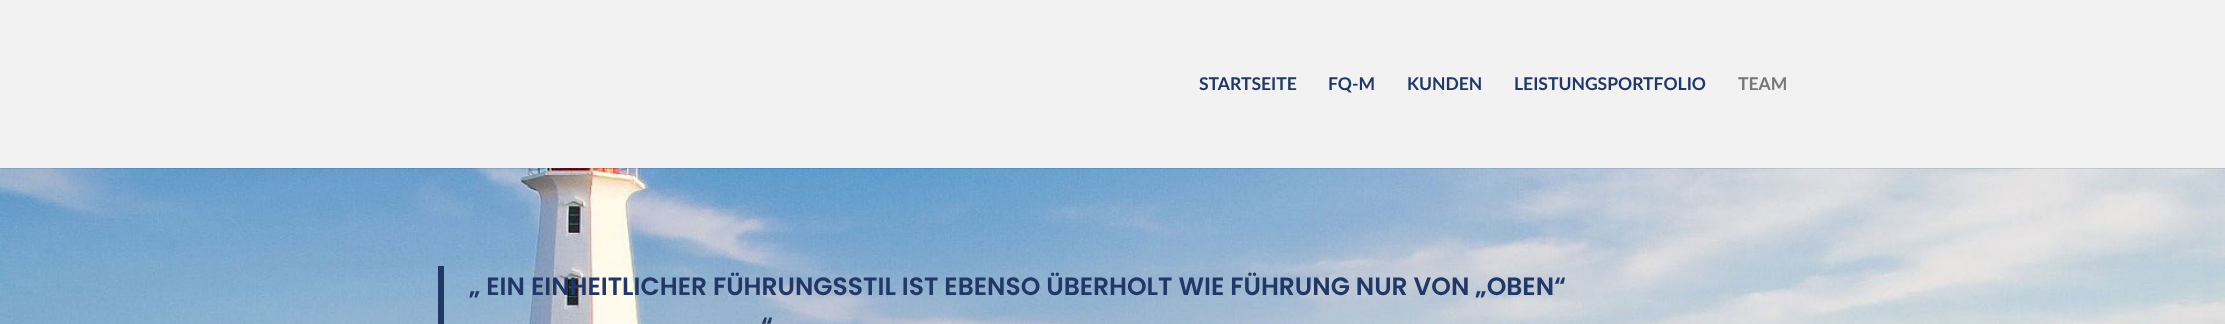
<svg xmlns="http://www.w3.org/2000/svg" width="2225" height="324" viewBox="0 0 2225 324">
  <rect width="100%" height="100%" fill="#ffffff"/>
  <image x="0" y="168" width="2225" height="156" href="img1.png"/>
  <rect x="0" y="168" width="2225" height="1" fill="#000000" fill-opacity="0.1"/>
  <rect x="0" y="0" width="2225" height="168" fill="#f2f2f2"/>
  <text x="1199" y="90" font-family="Lato" font-size="17.5" font-weight="bold" fill="#213766">STARTSEITE</text>
  <text x="1328" y="90" font-family="Lato" font-size="17.5" font-weight="bold" fill="#213766">FQ-M</text>
  <text x="1407" y="90" font-family="Lato" font-size="17.5" font-weight="bold" fill="#213766">KUNDEN</text>
  <text x="1514" y="90" font-family="Lato" font-size="17.5" font-weight="bold" fill="#213766">LEISTUNGSPORTFOLIO</text>
  <text x="1738" y="90" font-family="Lato" font-size="17.5" font-weight="bold" fill="#777777">TEAM</text>
  <rect x="438" y="266" width="6" height="58" fill="#213766"/>
  <text x="469" y="295" font-family="Poppins" font-size="25" font-weight="600" fill="#213766">„ EIN EINHEITLICHER FÜHRUNGSSTIL IST EBENSO ÜBERHOLT WIE FÜHRUNG NUR VON „OBEN“</text>
  <text x="761" y="335" font-family="Poppins" font-size="25" font-weight="600" fill="#213766">“</text>
</svg>
